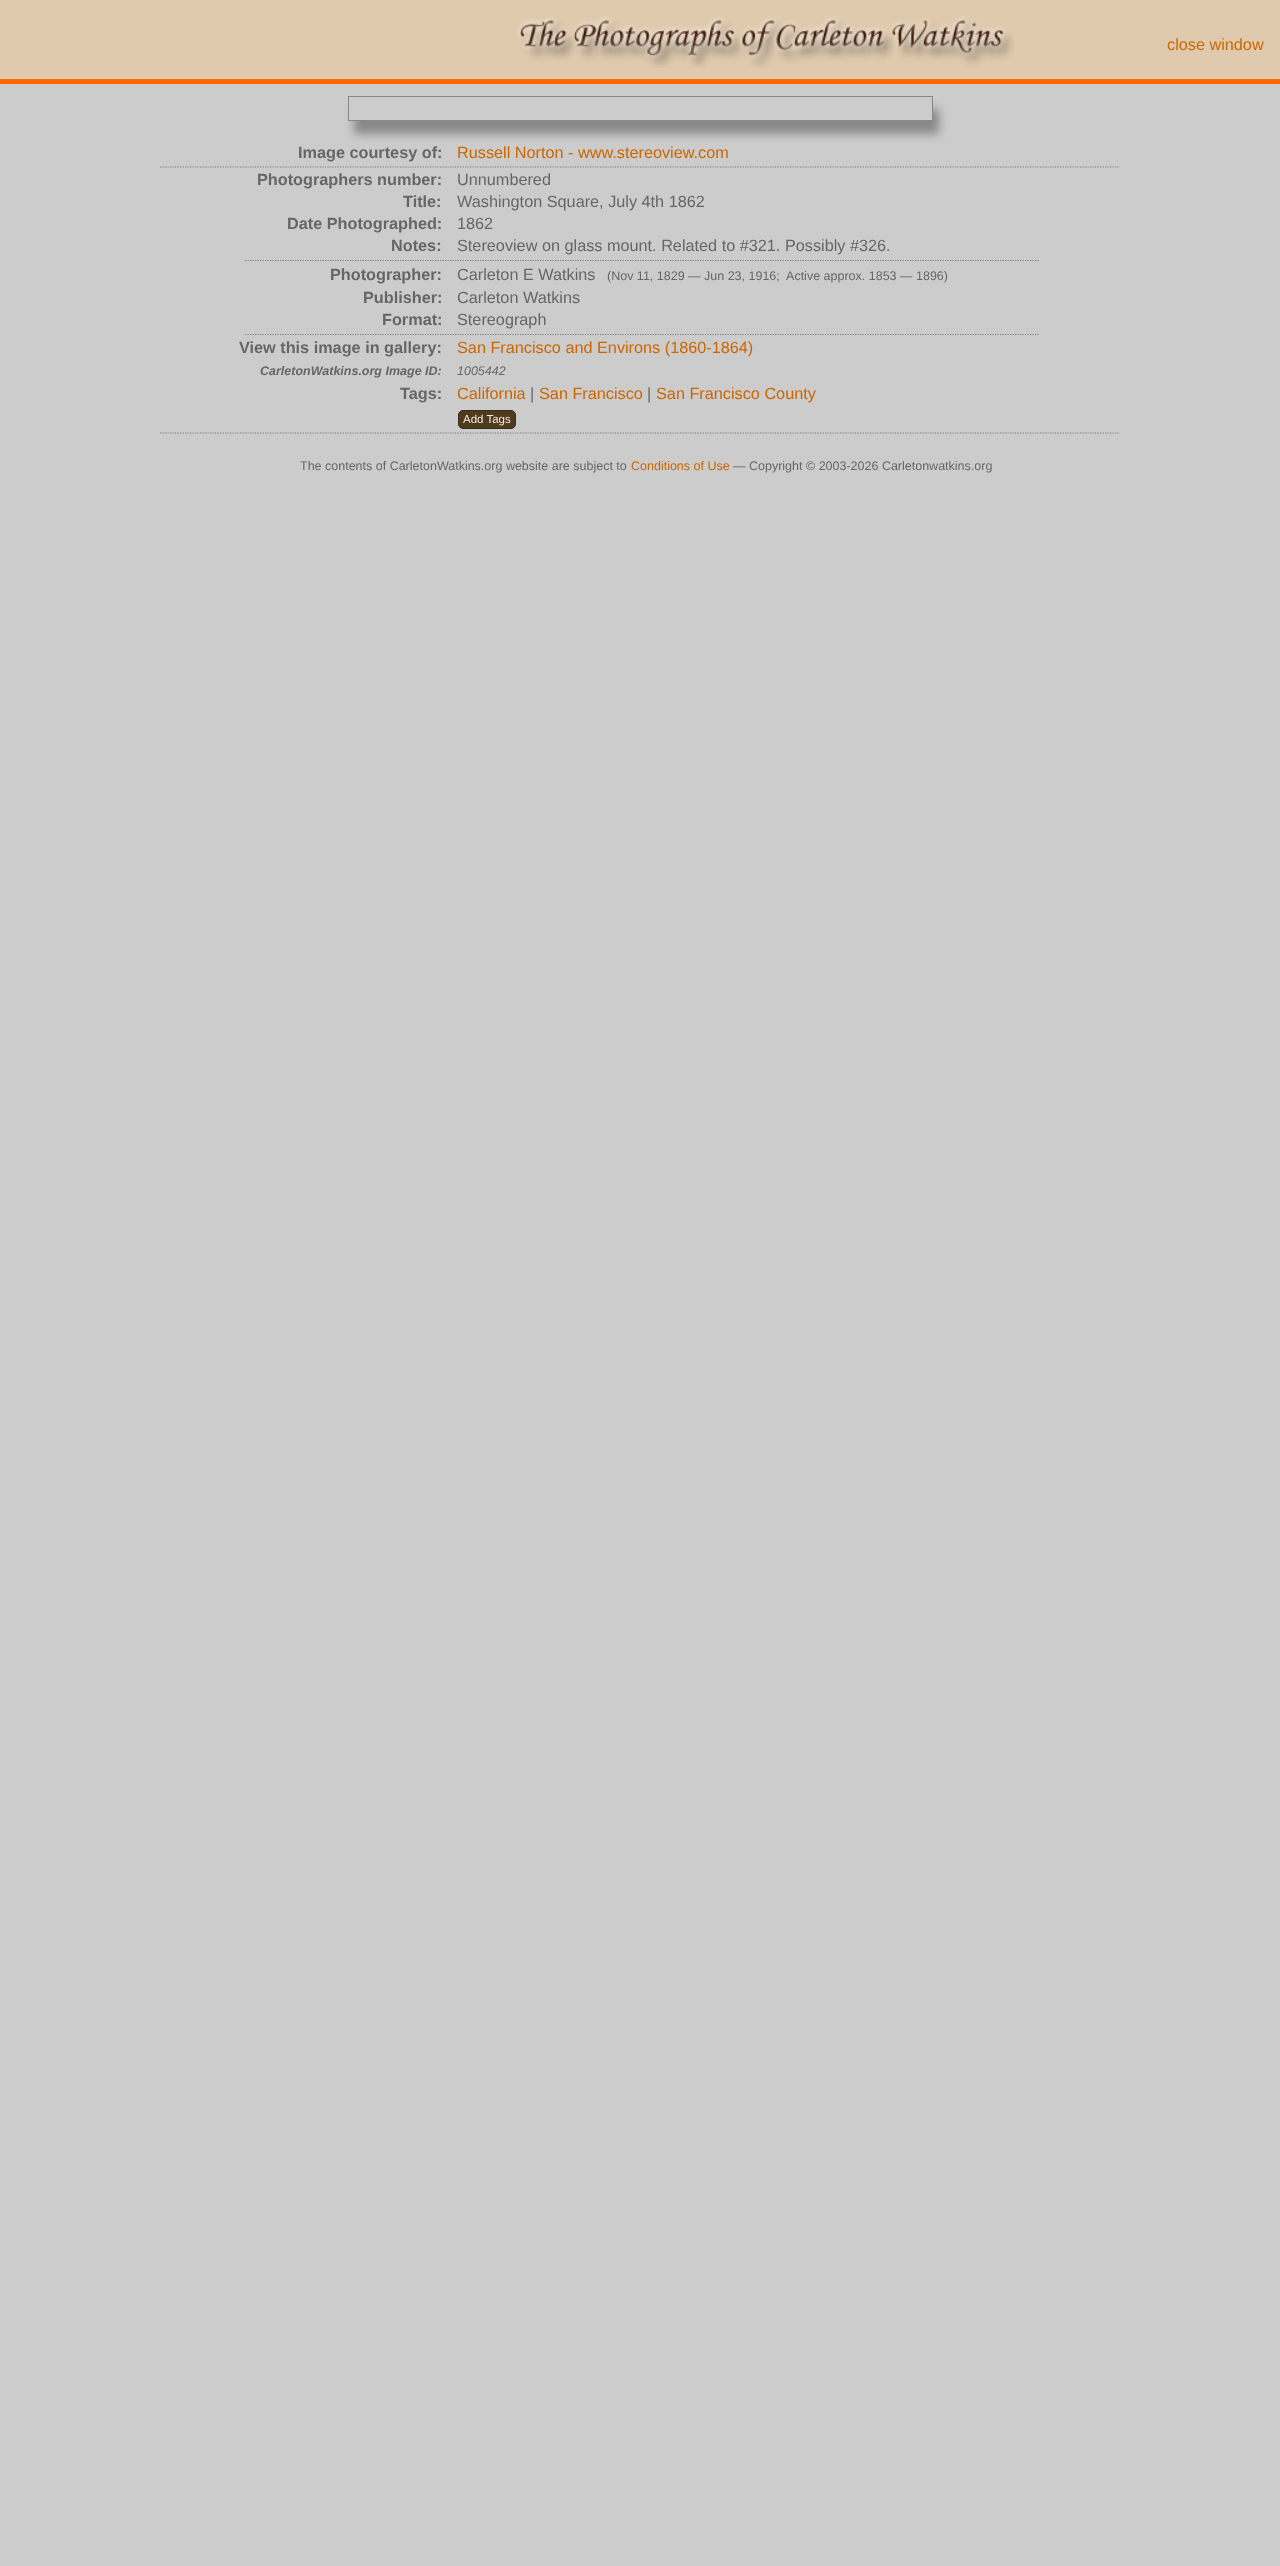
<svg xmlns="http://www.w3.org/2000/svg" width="1280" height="2566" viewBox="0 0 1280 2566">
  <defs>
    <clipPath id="clip1"><path d="M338 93H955V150H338ZM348 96H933V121H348Z" clip-rule="evenodd"/></clipPath>
    <filter id="blur1" x="-50%" y="-200%" width="200%" height="500%"><feGaussianBlur stdDeviation="5"/></filter>
  </defs>
  <rect width="100%" height="100%" fill="#cccccc"/>
  <rect x="0" y="0" width="1280" height="79" fill="#e0caae"/>
  <rect x="0" y="79" width="1280" height="5" fill="#ff6600"/>
  <image x="516" y="16" width="498" height="52" href="img1.png"/>
  <text x="1167" y="50" font-family="Liberation Sans" font-size="16.25" fill="#cc6600">close window</text>
  <g clip-path="url(#clip1)">
    <rect x="354" y="109" width="585" height="25" fill="#888888" filter="url(#blur1)"/>
  </g>
  <rect x="348.5" y="96.5" width="584" height="24" fill="none" stroke="#888888"/>
  <text x="298" y="158" font-family="Liberation Sans" font-size="16.25" font-weight="bold" fill="#666666">Image courtesy of:</text>
  <text x="457" y="158" font-family="Liberation Sans" font-size="16.25" fill="#cc6600">Russell Norton - www.stereoview.com</text>
  <path d="M160 167H1120" fill="none" stroke="#808080" stroke-width="1.2" stroke-dasharray="1.25 1.25"/>
  <path d="M160 433H1120" fill="none" stroke="#808080" stroke-width="1.2" stroke-dasharray="1.25 1.25"/>
  <text x="257" y="185" font-family="Liberation Sans" font-size="16.25" font-weight="bold" fill="#666666">Photographers number:</text>
  <text x="457" y="185" font-family="Liberation Sans" font-size="16.25" fill="#666666">Unnumbered</text>
  <text x="403" y="207" font-family="Liberation Sans" font-size="16.25" font-weight="bold" fill="#666666">Title:</text>
  <text x="457" y="207" font-family="Liberation Sans" font-size="16.25" fill="#666666">Washington Square, July 4th 1862</text>
  <text x="287" y="229" font-family="Liberation Sans" font-size="16.25" font-weight="bold" fill="#666666">Date Photographed:</text>
  <text x="457" y="229" font-family="Liberation Sans" font-size="16.25" fill="#666666">1862</text>
  <text x="391" y="251" font-family="Liberation Sans" font-size="16.25" font-weight="bold" fill="#666666">Notes:</text>
  <text x="457" y="251" font-family="Liberation Sans" font-size="16.25" fill="#666666">Stereoview on glass mount. Related to #321. Possibly #326.</text>
  <path d="M245 260.5H1040" fill="none" stroke="#808080" stroke-width="1.2" stroke-dasharray="1.25 1.25"/>
  <text x="330" y="280" font-family="Liberation Sans" font-size="16.25" font-weight="bold" fill="#666666">Photographer:</text>
  <text x="457" y="280" font-family="Liberation Sans" font-size="16.25" fill="#666666">Carleton E Watkins</text>
  <text x="607" y="280" font-family="Liberation Sans" font-size="12.5" fill="#666666" xml:space="preserve">(Nov 11, 1829 — Jun 23, 1916;  Active approx. 1853 — 1896)</text>
  <text x="363" y="303" font-family="Liberation Sans" font-size="16.25" font-weight="bold" fill="#666666">Publisher:</text>
  <text x="457" y="303" font-family="Liberation Sans" font-size="16.25" fill="#666666">Carleton Watkins</text>
  <text x="382" y="325" font-family="Liberation Sans" font-size="16.25" font-weight="bold" fill="#666666">Format:</text>
  <text x="457" y="325" font-family="Liberation Sans" font-size="16.25" fill="#666666">Stereograph</text>
  <path d="M245 334.5H1040" fill="none" stroke="#808080" stroke-width="1.2" stroke-dasharray="1.25 1.25"/>
  <text x="239" y="353" font-family="Liberation Sans" font-size="16.25" font-weight="bold" fill="#666666">View this image in gallery:</text>
  <text x="457" y="353" font-family="Liberation Sans" font-size="16.25" fill="#cc6600">San Francisco and Environs (1860-1864)</text>
  <text x="260" y="375" font-family="Liberation Sans" font-size="12.5" font-weight="bold" font-style="italic" fill="#666666">CarletonWatkins.org Image ID:</text>
  <text x="457" y="375" font-family="Liberation Sans" font-size="12.5" font-style="italic" fill="#666666">1005442</text>
  <text x="400" y="399" font-family="Liberation Sans" font-size="16.25" font-weight="bold" fill="#666666">Tags:</text>
  <text x="457" y="399" font-family="Liberation Sans" font-size="16.25" fill="#cc6600">California</text>
  <text x="530" y="399" font-family="Liberation Sans" font-size="16.25" fill="#666666">|</text>
  <text x="539" y="399" font-family="Liberation Sans" font-size="16.25" fill="#cc6600">San Francisco</text>
  <text x="647" y="399" font-family="Liberation Sans" font-size="16.25" fill="#666666">|</text>
  <text x="656" y="399" font-family="Liberation Sans" font-size="16.25" fill="#cc6600">San Francisco County</text>
  <rect x="458.5" y="410.5" width="57" height="18" rx="4.5" fill="#4f3a19" stroke="#333026"/>
  <text x="463" y="423" font-family="Liberation Sans" font-size="11.5" fill="#ede9e5">Add Tags</text>
  <text x="300" y="470" font-family="Liberation Sans" font-size="12.5" fill="#666666">The contents of CarletonWatkins.org website are subject to</text>
  <text x="631" y="470" font-family="Liberation Sans" font-size="12.5" fill="#cc6600">Conditions of Use</text>
  <text x="733" y="470" font-family="Liberation Sans" font-size="12.5" fill="#666666">— Copyright © 2003-2026 Carletonwatkins.org</text>
</svg>
